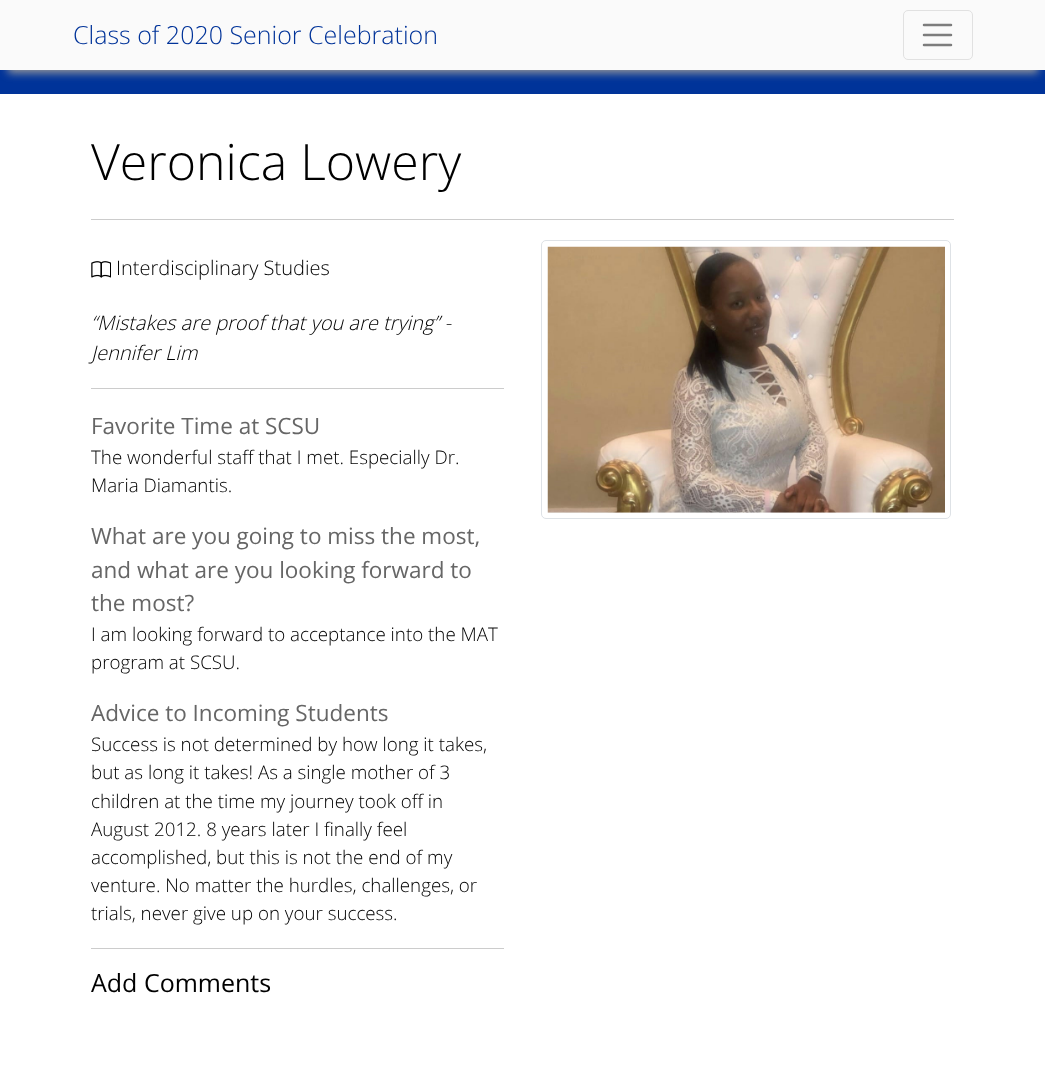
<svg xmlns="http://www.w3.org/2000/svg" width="1045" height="1083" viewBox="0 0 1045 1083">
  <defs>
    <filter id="blur1" x="-50%" y="-200%" width="200%" height="500%"><feGaussianBlur stdDeviation="4"/></filter>
  </defs>
  <rect width="100%" height="100%" fill="#003399"/>
  <rect x="8" y="18" width="1030" height="55" fill="#999999" filter="url(#blur1)"/>
  <rect x="0" y="0" width="1045" height="70" fill="#fafafa"/>
  <text x="73" y="44" font-family="Open Sans" font-size="25" font-weight="300" fill="#003399">Class of 2020 Senior Celebration</text>
  <rect x="903.5" y="10.5" width="69" height="49" rx="4.5" fill="none" stroke="#e1e1e1"/>
  <path d="M924 25H951M924 35H951M924 45H951" fill="none" stroke="#7d7d7d" stroke-width="2.5" stroke-linecap="round"/>
  <rect x="0" y="94" width="1045" height="989" fill="#ffffff"/>
  <text x="91" y="180" font-family="Open Sans" font-size="50" font-weight="300" fill="#000000">Veronica Lowery</text>
  <rect x="91" y="219" width="863" height="1" fill="#cccccc"/>
  <image x="91" y="261" width="20" height="17" href="img1.png"/>
  <text x="116" y="275" font-family="Open Sans" font-size="20" font-weight="300" fill="#000000">Interdisciplinary Studies</text>
  <text x="91" y="330" font-family="Open Sans" font-size="20" font-weight="300" font-style="italic" fill="#000000">“Mistakes are proof that you are trying” -</text>
  <text x="91" y="360" font-family="Open Sans" font-size="20" font-weight="300" font-style="italic" fill="#000000">Jennifer Lim</text>
  <rect x="91" y="388" width="413" height="1" fill="#cccccc"/>
  <text x="91" y="434" font-family="Open Sans" font-size="22.5" fill="#666666">Favorite Time at SCSU</text>
  <text x="91" y="464" font-family="Open Sans" font-size="18.75" font-weight="300" fill="#000000">The wonderful staff that I met. Especially Dr.</text>
  <text x="91" y="492" font-family="Open Sans" font-size="18.75" font-weight="300" fill="#000000">Maria Diamantis.</text>
  <text x="91" y="544" font-family="Open Sans" font-size="22.5" fill="#666666">What are you going to miss the most,</text>
  <text x="91" y="578" font-family="Open Sans" font-size="22.5" fill="#666666">and what are you looking forward to</text>
  <text x="91" y="611" font-family="Open Sans" font-size="22.5" fill="#666666">the most?</text>
  <text x="91" y="641" font-family="Open Sans" font-size="18.75" font-weight="300" fill="#000000">I am looking forward to acceptance into the MAT</text>
  <text x="91" y="669" font-family="Open Sans" font-size="18.75" font-weight="300" fill="#000000">program at SCSU.</text>
  <text x="91" y="721" font-family="Open Sans" font-size="22.5" fill="#666666">Advice to Incoming Students</text>
  <text x="91" y="751" font-family="Open Sans" font-size="18.75" font-weight="300" fill="#000000">Success is not determined by how long it takes,</text>
  <text x="91" y="779" font-family="Open Sans" font-size="18.75" font-weight="300" fill="#000000">but as long it takes! As a single mother of 3</text>
  <text x="91" y="808" font-family="Open Sans" font-size="18.75" font-weight="300" fill="#000000">children at the time my journey took off in</text>
  <text x="91" y="836" font-family="Open Sans" font-size="18.75" font-weight="300" fill="#000000">August 2012. 8 years later I finally feel</text>
  <text x="91" y="864" font-family="Open Sans" font-size="18.75" font-weight="300" fill="#000000">accomplished, but this is not the end of my</text>
  <text x="91" y="892" font-family="Open Sans" font-size="18.75" font-weight="300" fill="#000000">venture. No matter the hurdles, challenges, or</text>
  <text x="91" y="920" font-family="Open Sans" font-size="18.75" font-weight="300" fill="#000000">trials, never give up on your success.</text>
  <rect x="91" y="948" width="413" height="1" fill="#cccccc"/>
  <text x="91" y="992" font-family="Open Sans" font-size="25" fill="#000000">Add Comments</text>
  <rect x="541.5" y="240.5" width="409" height="278" rx="4.5" fill="none" stroke="#dee2e6"/>
  <image x="547" y="246" width="398" height="267" href="img2.png"/>
</svg>
